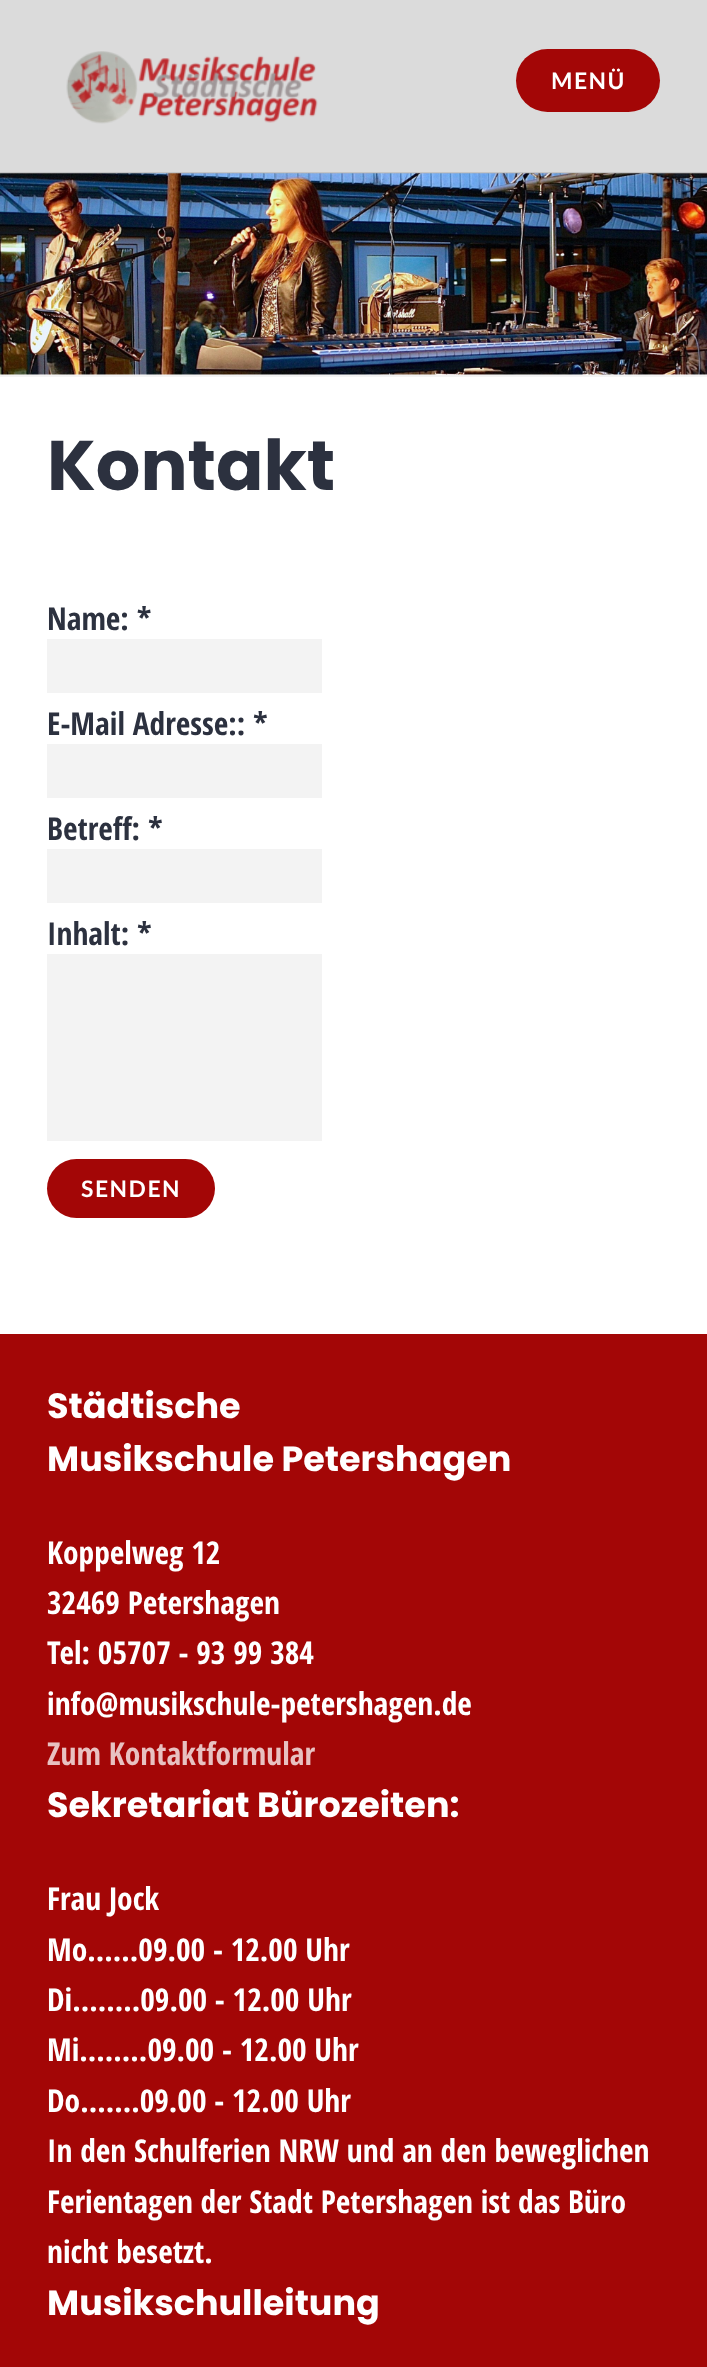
<svg xmlns="http://www.w3.org/2000/svg" width="707" height="2367" viewBox="0 0 707 2367">
  <rect width="100%" height="100%" fill="#ffffff"/>
  <rect x="0" y="0" width="707" height="173" fill="#dbdbdb"/>
  <image x="0" y="173" width="707" height="202" href="img2.png"/>
  <rect x="0" y="172" width="707" height="2" fill="#000000" fill-opacity="0.1"/>
  <image x="66" y="51" width="252" height="73" href="img1.png"/>
  <rect x="516" y="49" width="144" height="63" rx="31.5" fill="#a30606"/>
  <text x="551" y="89" font-family="Lato" font-size="22.75" font-weight="bold" letter-spacing="1.5" fill="#ffffff">MENÜ</text>
  <rect x="0" y="375" width="707" height="2" fill="#f3f3f3"/>
  <text x="47" y="490" font-family="Poppins" font-size="70" font-weight="bold" fill="#2c313f">Kontakt</text>
  <text x="47" y="630" font-family="Open Sans Condensed" font-size="31.5" font-weight="bold" fill="#2c313f">Name: *</text>
  <rect x="47" y="639" width="275" height="54" fill="#f3f3f3"/>
  <text x="47" y="735" font-family="Open Sans Condensed" font-size="31.5" font-weight="bold" fill="#2c313f">E-Mail Adresse:: *</text>
  <rect x="47" y="744" width="275" height="54" fill="#f3f3f3"/>
  <text x="47" y="840" font-family="Open Sans Condensed" font-size="31.5" font-weight="bold" fill="#2c313f">Betreff: *</text>
  <rect x="47" y="849" width="275" height="54" fill="#f3f3f3"/>
  <text x="47" y="945" font-family="Open Sans Condensed" font-size="31.5" font-weight="bold" fill="#2c313f">Inhalt: *</text>
  <rect x="47" y="954" width="275" height="187" fill="#f3f3f3"/>
  <rect x="47" y="1159" width="168" height="59" rx="29.5" fill="#a30606"/>
  <text x="81" y="1197" font-family="Lato" font-size="22.75" font-weight="bold" letter-spacing="1.5" fill="#ffffff">SENDEN</text>
  <rect x="0" y="1334" width="707" height="1033" fill="#a30606"/>
  <text x="47" y="1418" font-family="Poppins" font-size="35" font-weight="bold" fill="#ffffff">Städtische</text>
  <text x="47" y="1471" font-family="Poppins" font-size="35" font-weight="bold" fill="#ffffff">Musikschule Petershagen</text>
  <text x="47" y="1564" font-family="Open Sans Condensed" font-size="31.5" font-weight="bold" fill="#ffffff">Koppelweg 12</text>
  <text x="47" y="1614" font-family="Open Sans Condensed" font-size="31.5" font-weight="bold" fill="#ffffff">32469 Petershagen</text>
  <text x="47" y="1664" font-family="Open Sans Condensed" font-size="31.5" font-weight="bold" fill="#ffffff">Tel: 05707 - 93 99 384</text>
  <text x="47" y="1715" font-family="Open Sans Condensed" font-size="31.5" font-weight="bold" fill="#ffffff">info@musikschule-petershagen.de</text>
  <text x="47" y="1765" font-family="Open Sans Condensed" font-size="31.5" font-weight="bold" fill="#e8c1c1">Zum Kontaktformular</text>
  <text x="47" y="1817" font-family="Poppins" font-size="35" font-weight="bold" fill="#ffffff">Sekretariat Bürozeiten:</text>
  <text x="47" y="1910" font-family="Open Sans Condensed" font-size="31.5" font-weight="bold" fill="#ffffff">Frau Jock</text>
  <text x="47" y="1961" font-family="Open Sans Condensed" font-size="31.5" font-weight="bold" fill="#ffffff">Mo......09.00 - 12.00 Uhr</text>
  <text x="47" y="2011" font-family="Open Sans Condensed" font-size="31.5" font-weight="bold" fill="#ffffff">Di........09.00 - 12.00 Uhr</text>
  <text x="47" y="2061" font-family="Open Sans Condensed" font-size="31.5" font-weight="bold" fill="#ffffff">Mi........09.00 - 12.00 Uhr</text>
  <text x="47" y="2112" font-family="Open Sans Condensed" font-size="31.5" font-weight="bold" fill="#ffffff">Do.......09.00 - 12.00 Uhr</text>
  <text x="47" y="2162" font-family="Open Sans Condensed" font-size="31.5" font-weight="bold" fill="#ffffff">In den Schulferien NRW und an den beweglichen</text>
  <text x="47" y="2213" font-family="Open Sans Condensed" font-size="31.5" font-weight="bold" fill="#ffffff">Ferientagen der Stadt Petershagen ist das Büro</text>
  <text x="47" y="2263" font-family="Open Sans Condensed" font-size="31.5" font-weight="bold" fill="#ffffff">nicht besetzt.</text>
  <text x="47" y="2315" font-family="Poppins" font-size="35" font-weight="bold" fill="#ffffff">Musikschulleitung</text>
</svg>
